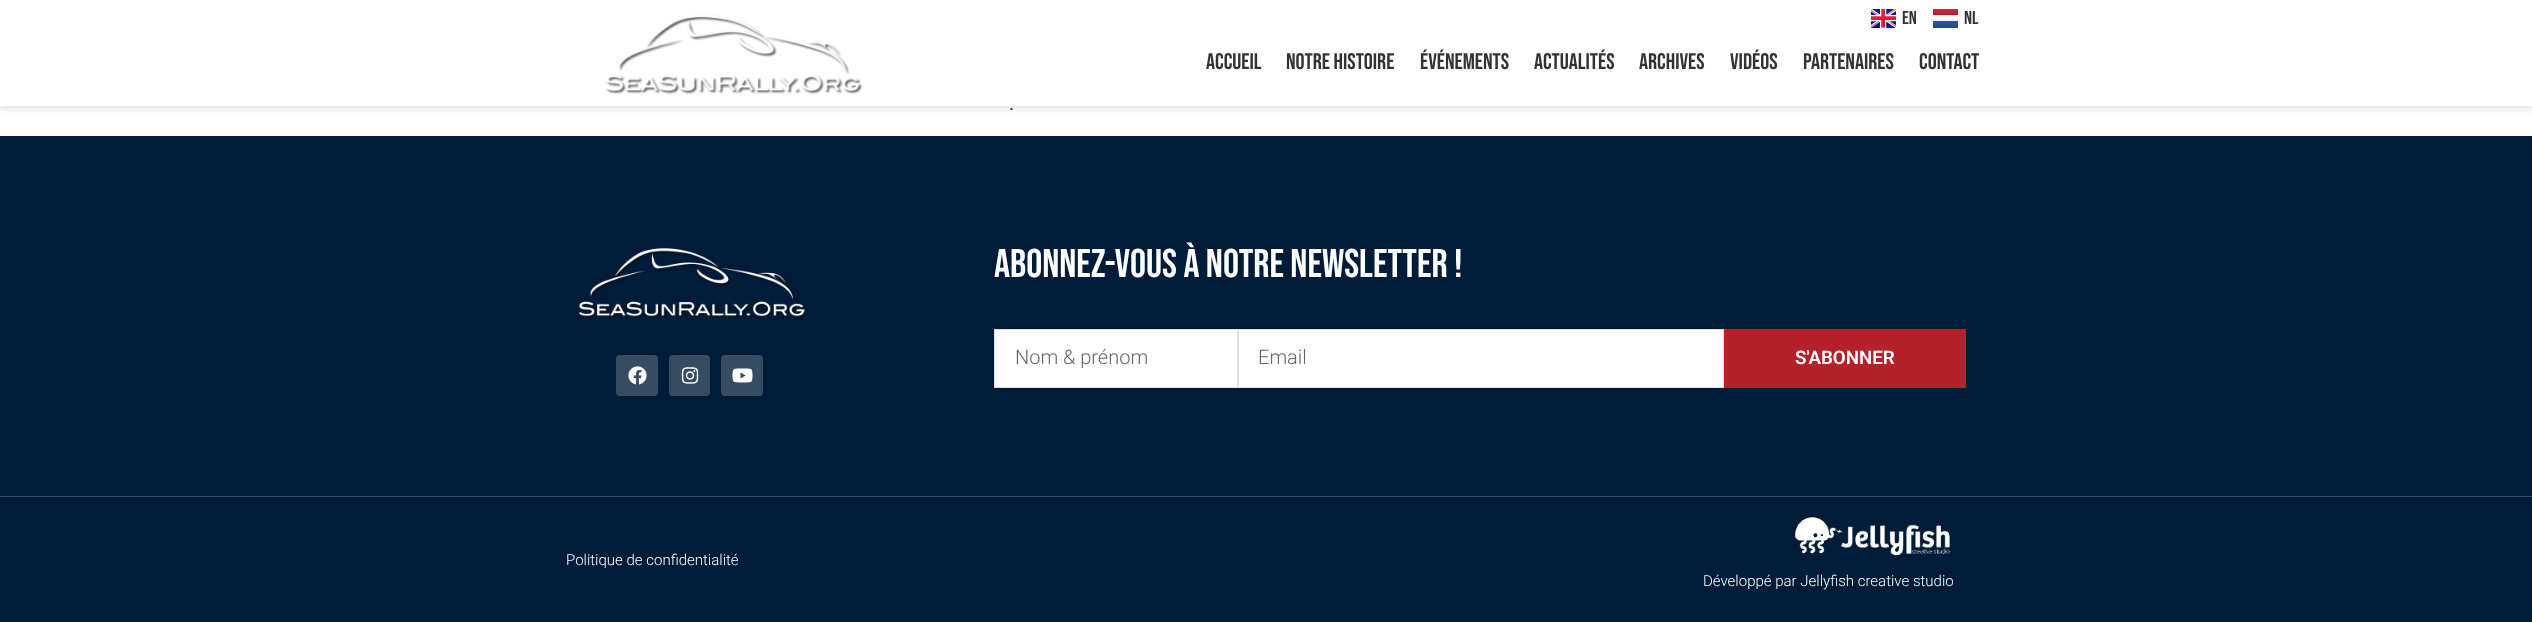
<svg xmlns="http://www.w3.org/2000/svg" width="2532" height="622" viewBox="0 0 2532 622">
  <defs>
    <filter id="blur1" x="-50%" y="-200%" width="200%" height="500%"><feGaussianBlur stdDeviation="3"/></filter>
    <linearGradient id="g1" gradientUnits="userSpaceOnUse" x1="1946" y1="9" x2="1946" y2="15"><stop offset="0" stop-color="#ca2b39"/><stop offset="1" stop-color="#ac1f2c"/></linearGradient>
    <linearGradient id="g2" gradientUnits="userSpaceOnUse" x1="1946" y1="15" x2="1946" y2="21"><stop offset="0" stop-color="#ffffff"/><stop offset="1" stop-color="#f0f0f0"/></linearGradient>
    <linearGradient id="g3" gradientUnits="userSpaceOnUse" x1="1946" y1="21" x2="1946" y2="28"><stop offset="0" stop-color="#2c56a2"/><stop offset="1" stop-color="#244889"/></linearGradient>
  </defs>
  <rect width="100%" height="100%" fill="#ffffff"/>
  <rect x="-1" y="0" width="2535" height="109" fill="#000000" fill-opacity="0.11" filter="url(#blur1)"/>
  <rect x="0" y="0" width="2532" height="106" fill="#ffffff"/>
  <image x="606" y="14" width="257" height="81" href="img1.png"/>
  <image x="1871" y="9" width="25" height="19" href="img2.png"/>
  <text x="1902" y="24" font-family="Bebas Neue" font-size="18.75" fill="#333333">EN</text>
  <rect x="1933" y="9" width="25" height="6" fill="url(#g1)"/>
  <rect x="1933" y="16" width="25" height="5" fill="url(#g2)"/>
  <rect x="1933" y="21" width="25" height="7" fill="url(#g3)"/>
  <text x="1964" y="24" font-family="Bebas Neue" font-size="18.75" fill="#333333">NL</text>
  <text x="1206" y="69" font-family="Bebas Neue" font-size="22.5" fill="#333333">Accueil</text>
  <text x="1286" y="69" font-family="Bebas Neue" font-size="22.5" fill="#333333">Notre histoire</text>
  <text x="1420" y="69" font-family="Bebas Neue" font-size="22.5" fill="#333333">Événements</text>
  <text x="1534" y="69" font-family="Bebas Neue" font-size="22.5" fill="#333333">Actualités</text>
  <text x="1639" y="69" font-family="Bebas Neue" font-size="22.5" fill="#333333">Archives</text>
  <text x="1730" y="69" font-family="Bebas Neue" font-size="22.5" fill="#333333">Vidéos</text>
  <text x="1803" y="69" font-family="Bebas Neue" font-size="22.5" fill="#333333">Partenaires</text>
  <text x="1919" y="69" font-family="Bebas Neue" font-size="22.5" fill="#333333">Contact</text>
  <text x="1009" y="110" font-family="Roboto" font-size="20" fill="#333333">.</text>
  <rect x="0" y="136" width="2532" height="360" fill="#001c38"/>
  <image x="578" y="248" width="229" height="70" href="img3.png"/>
  <rect x="616" y="355" width="42" height="41" rx="4" fill="#364c62"/>
  <image x="628" y="366" width="19" height="19" href="img4.png"/>
  <rect x="669" y="355" width="41" height="41" rx="4" fill="#364c62"/>
  <image x="681" y="367" width="18" height="17" href="img5.png"/>
  <rect x="721" y="355" width="42" height="41" rx="4" fill="#364c62"/>
  <image x="732" y="368" width="21" height="15" href="img6.png"/>
  <text x="994" y="277" font-family="Bebas Neue" font-size="40" fill="#ffffff">Abonnez-vous à notre newsletter !</text>
  <rect x="994.5" y="329.5" width="243" height="58" fill="#ffffff" stroke="#e0e0e0"/>
  <text x="1015" y="364" font-family="Roboto" font-size="20" font-weight="300" fill="#666666">Nom &amp; prénom</text>
  <rect x="1238.5" y="329.5" width="485" height="58" fill="#ffffff" stroke="#e0e0e0"/>
  <text x="1258" y="364" font-family="Roboto" font-size="20" font-weight="300" fill="#666666">Email</text>
  <rect x="1724" y="329" width="242" height="59" fill="#b6202b"/>
  <text x="1795" y="364" font-family="Roboto" font-size="18.75" font-weight="600" fill="#ffffff">S'ABONNER</text>
  <rect x="0" y="497" width="2532" height="125" fill="#001c38"/>
  <rect x="0" y="496" width="2532" height="1" fill="#30475e"/>
  <text x="566" y="565" font-family="Roboto" font-size="15" font-weight="300" fill="#ffffff">Politique de confidentialité</text>
  <image x="1795" y="517" width="155" height="39" href="img7.png"/>
  <text x="1703" y="586" font-family="Roboto" font-size="15" font-weight="300" fill="#ffffff">Développé par Jellyfish creative studio</text>
</svg>
